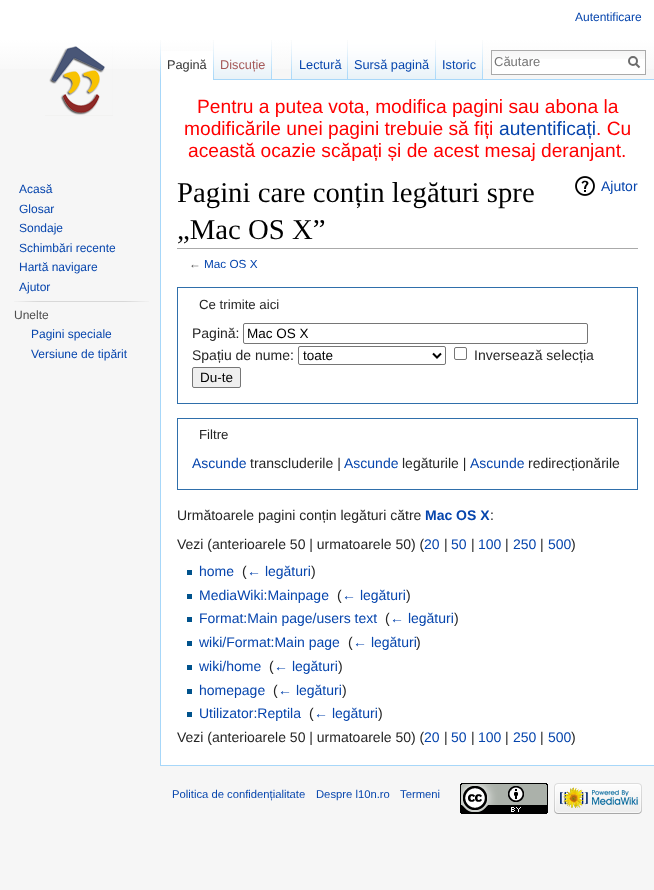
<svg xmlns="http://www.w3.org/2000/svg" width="654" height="890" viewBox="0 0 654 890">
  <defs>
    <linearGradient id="g1" gradientUnits="userSpaceOnUse" x1="327" y1="0" x2="327" y2="80"><stop offset="0.5" stop-color="#ffffff"/><stop offset="1" stop-color="#f6f6f6"/></linearGradient>
  </defs>
  <rect width="100%" height="100%" fill="#f6f6f6"/>
  <rect x="0" y="0" width="654" height="69" fill="url(#g1)"/>
  <text x="575" y="21" font-family="Liberation Sans" font-size="12" fill="#0645ad">Autentificare</text>
  <image x="160" y="40" width="1" height="39" href="img1.png"/>
  <rect x="161" y="51" width="52" height="29" fill="#ffffff"/>
  <image x="213" y="40" width="1" height="40" href="img2.png"/>
  <text x="167" y="69" font-family="Liberation Sans" font-size="12.75" fill="#333333">Pagină</text>
  <image x="214" y="40" width="58" height="40" href="img3.png"/>
  <image x="271" y="40" width="1" height="39" href="img4.png"/>
  <text x="220" y="69" font-family="Liberation Sans" font-size="12.75" fill="#a55858">Discuție</text>
  <image x="291" y="40" width="1" height="39" href="img1.png"/>
  <rect x="272" y="79" width="382" height="1" fill="#a7d7f9"/>
  <image x="292" y="40" width="56" height="40" href="img5.png"/>
  <image x="347" y="40" width="1" height="39" href="img4.png"/>
  <text x="299" y="69" font-family="Liberation Sans" font-size="12.75" fill="#0645ad">Lectură</text>
  <image x="348" y="40" width="88" height="40" href="img6.png"/>
  <image x="435" y="40" width="1" height="39" href="img4.png"/>
  <text x="354" y="69" font-family="Liberation Sans" font-size="12.75" fill="#0645ad">Sursă pagină</text>
  <image x="436" y="40" width="47" height="40" href="img7.png"/>
  <image x="482" y="40" width="1" height="39" href="img4.png"/>
  <text x="442" y="69" font-family="Liberation Sans" font-size="12.75" fill="#0645ad">Istoric</text>
  <rect x="492" y="59" width="153" height="15" fill="#ffffff"/>
  <image x="492" y="51" width="153" height="8" href="img8.png"/>
  <rect x="491.5" y="50.5" width="154" height="24" fill="none" stroke="#aaaaaa"/>
  <text x="494" y="66" font-family="Liberation Sans" font-size="13" fill="#757575">Căutare</text>
  <path d="M639.5 67.5L635.5 63.5" fill="none" stroke="#6c6c6c" stroke-width="2"/>
  <circle cx="633" cy="61" r="4" fill="none" stroke="#6c6c6c" stroke-width="2"/>
  <image x="45" y="46" width="68" height="70" href="img9.png"/>
  <text x="19" y="193" font-family="Liberation Sans" font-size="12" fill="#0645ad">Acasă</text>
  <text x="19" y="213" font-family="Liberation Sans" font-size="12" fill="#0645ad">Glosar</text>
  <text x="19" y="232" font-family="Liberation Sans" font-size="12" fill="#0645ad">Sondaje</text>
  <text x="19" y="252" font-family="Liberation Sans" font-size="12" fill="#0645ad">Schimbări recente</text>
  <text x="19" y="271" font-family="Liberation Sans" font-size="12" fill="#0645ad">Hartă navigare</text>
  <text x="19" y="291" font-family="Liberation Sans" font-size="12" fill="#0645ad">Ajutor</text>
  <image x="14" y="301" width="135" height="1" href="img10.png"/>
  <text x="14" y="319" font-family="Liberation Sans" font-size="12" fill="#4d4d4d">Unelte</text>
  <text x="31" y="338" font-family="Liberation Sans" font-size="12" fill="#0645ad">Pagini speciale</text>
  <text x="31" y="358" font-family="Liberation Sans" font-size="12" fill="#0645ad">Versiune de tipărit</text>
  <rect x="161" y="80" width="493" height="685" fill="#ffffff"/>
  <rect x="160" y="765" width="494" height="1" fill="#a7d7f9"/>
  <rect x="160" y="79" width="1" height="687" fill="#a7d7f9"/>
  <text x="197" y="113" font-family="Liberation Sans" font-size="19.2" fill="#ff0000">Pentru a putea vota, modifica pagini sau abona la</text>
  <text x="184" y="135" font-family="Liberation Sans" font-size="19.2" fill="#ff0000">modificările unei pagini trebuie să fiți</text>
  <text x="499" y="135" font-family="Liberation Sans" font-size="19.2" fill="#0645ad">autentificați</text>
  <text x="596" y="135" font-family="Liberation Sans" font-size="19.2" fill="#ff0000">. Cu</text>
  <text x="188" y="157" font-family="Liberation Sans" font-size="19.2" fill="#ff0000">această ocazie scăpați și de acest mesaj deranjant.</text>
  <rect x="177" y="248" width="461" height="1" fill="#aaaaaa"/>
  <text x="177" y="202" font-family="Liberation Serif" font-size="28.75" fill="#000000">Pagini care conțin legături spre</text>
  <text x="177" y="239" font-family="Liberation Serif" font-size="28.75" fill="#000000">„Mac OS X”</text>
  <image x="575" y="176" width="20" height="20" href="img11.png"/>
  <text x="601" y="191" font-family="Liberation Sans" font-size="14" fill="#0645ad">Ajutor</text>
  <text x="189" y="268" font-family="Liberation Sans" font-size="11.75" fill="#545454">←</text>
  <text x="204" y="268" font-family="Liberation Sans" font-size="11.75" fill="#0645ad">Mac OS X</text>
  <rect x="177.5" y="287.5" width="460" height="116" fill="none" stroke="#2f6fab"/>
  <text x="199" y="309" font-family="Liberation Sans" font-size="13.25" fill="#252525">Ce trimite aici</text>
  <text x="192" y="338" font-family="Liberation Sans" font-size="14" fill="#252525">Pagină:</text>
  <rect x="243.5" y="323.5" width="344" height="20" rx="1.5" fill="none" stroke="#767676"/>
  <text x="247" y="338" font-family="Liberation Sans" font-size="13.5" fill="#000000">Mac OS X</text>
  <text x="192" y="360" font-family="Liberation Sans" font-size="14" fill="#252525">Spațiu de nume:</text>
  <rect x="298.5" y="346.5" width="147" height="18" rx="1.5" fill="none" stroke="#767676"/>
  <path d="M433 353.5L437 357.5L441 353.5" fill="none" stroke="#000000" stroke-width="2"/>
  <text x="303" y="360" font-family="Liberation Sans" font-size="13.5" fill="#000000">toate</text>
  <rect x="454.5" y="347.5" width="12" height="12" rx="1.5" fill="none" stroke="#767676"/>
  <text x="474" y="360" font-family="Liberation Sans" font-size="14" fill="#252525">Inversează selecția</text>
  <rect x="192.5" y="367.5" width="48" height="20" rx="1.5" fill="#efefef" stroke="#767676"/>
  <text x="200" y="382" font-family="Liberation Sans" font-size="13.5" fill="#000000">Du-te</text>
  <rect x="177.5" y="418.5" width="460" height="71" fill="none" stroke="#2f6fab"/>
  <text x="199" y="439" font-family="Liberation Sans" font-size="13.25" fill="#252525">Filtre</text>
  <text x="192" y="468" font-family="Liberation Sans" font-size="14" fill="#0645ad">Ascunde</text>
  <text x="250" y="468" font-family="Liberation Sans" font-size="14" fill="#252525">transcluderile |</text>
  <text x="344" y="468" font-family="Liberation Sans" font-size="14" fill="#0645ad">Ascunde</text>
  <text x="402" y="468" font-family="Liberation Sans" font-size="14" fill="#252525">legăturile |</text>
  <text x="470" y="468" font-family="Liberation Sans" font-size="14" fill="#0645ad">Ascunde</text>
  <text x="528" y="468" font-family="Liberation Sans" font-size="14" fill="#252525">redirecționările</text>
  <text x="177" y="520" font-family="Liberation Sans" font-size="14" fill="#252525">Următoarele pagini conțin legături către</text>
  <text x="425" y="520" font-family="Liberation Sans" font-size="14" font-weight="bold" fill="#0645ad">Mac OS X</text>
  <text x="490" y="520" font-family="Liberation Sans" font-size="14" fill="#252525">:</text>
  <text x="177" y="549" font-family="Liberation Sans" font-size="14" fill="#252525">Vezi (anterioarele 50 | urmatoarele 50) (</text>
  <text x="424" y="549" font-family="Liberation Sans" font-size="14" fill="#0645ad">20</text>
  <text x="444" y="549" font-family="Liberation Sans" font-size="14" fill="#252525">|</text>
  <text x="451" y="549" font-family="Liberation Sans" font-size="14" fill="#0645ad">50</text>
  <text x="471" y="549" font-family="Liberation Sans" font-size="14" fill="#252525">|</text>
  <text x="478" y="549" font-family="Liberation Sans" font-size="14" fill="#0645ad">100</text>
  <text x="505" y="549" font-family="Liberation Sans" font-size="14" fill="#252525">|</text>
  <text x="513" y="549" font-family="Liberation Sans" font-size="14" fill="#0645ad">250</text>
  <text x="540" y="549" font-family="Liberation Sans" font-size="14" fill="#252525">|</text>
  <text x="548" y="549" font-family="Liberation Sans" font-size="14" fill="#0645ad">500</text>
  <text x="571" y="549" font-family="Liberation Sans" font-size="14" fill="#252525">)</text>
  <rect x="187" y="570" width="5" height="5" fill="#00528c"/>
  <text x="199" y="576" font-family="Liberation Sans" font-size="14" fill="#0645ad">home</text>
  <text x="242" y="576" font-family="Liberation Sans" font-size="14" fill="#252525">(</text>
  <text x="247" y="576" font-family="Liberation Sans" font-size="14" fill="#0645ad">← legături</text>
  <text x="311" y="576" font-family="Liberation Sans" font-size="14" fill="#252525">)</text>
  <rect x="187" y="594" width="5" height="5" fill="#00528c"/>
  <text x="199" y="600" font-family="Liberation Sans" font-size="14" fill="#0645ad">MediaWiki:Mainpage</text>
  <text x="337" y="600" font-family="Liberation Sans" font-size="14" fill="#252525">(</text>
  <text x="342" y="600" font-family="Liberation Sans" font-size="14" fill="#0645ad">← legături</text>
  <text x="406" y="600" font-family="Liberation Sans" font-size="14" fill="#252525">)</text>
  <rect x="187" y="617" width="5" height="5" fill="#00528c"/>
  <text x="199" y="623" font-family="Liberation Sans" font-size="14" fill="#0645ad">Format:Main page/users text</text>
  <text x="385" y="623" font-family="Liberation Sans" font-size="14" fill="#252525">(</text>
  <text x="390" y="623" font-family="Liberation Sans" font-size="14" fill="#0645ad">← legături</text>
  <text x="454" y="623" font-family="Liberation Sans" font-size="14" fill="#252525">)</text>
  <rect x="187" y="641" width="5" height="5" fill="#00528c"/>
  <text x="199" y="647" font-family="Liberation Sans" font-size="14" fill="#0645ad">wiki/Format:Main page</text>
  <text x="348" y="647" font-family="Liberation Sans" font-size="14" fill="#252525">(</text>
  <text x="353" y="647" font-family="Liberation Sans" font-size="14" fill="#0645ad">← legături</text>
  <text x="416" y="647" font-family="Liberation Sans" font-size="14" fill="#252525">)</text>
  <rect x="187" y="665" width="5" height="5" fill="#00528c"/>
  <text x="199" y="671" font-family="Liberation Sans" font-size="14" fill="#0645ad">wiki/home</text>
  <text x="269" y="671" font-family="Liberation Sans" font-size="14" fill="#252525">(</text>
  <text x="274" y="671" font-family="Liberation Sans" font-size="14" fill="#0645ad">← legături</text>
  <text x="338" y="671" font-family="Liberation Sans" font-size="14" fill="#252525">)</text>
  <rect x="187" y="689" width="5" height="5" fill="#00528c"/>
  <text x="199" y="695" font-family="Liberation Sans" font-size="14" fill="#0645ad">homepage</text>
  <text x="273" y="695" font-family="Liberation Sans" font-size="14" fill="#252525">(</text>
  <text x="278" y="695" font-family="Liberation Sans" font-size="14" fill="#0645ad">← legături</text>
  <text x="342" y="695" font-family="Liberation Sans" font-size="14" fill="#252525">)</text>
  <rect x="187" y="712" width="5" height="5" fill="#00528c"/>
  <text x="199" y="718" font-family="Liberation Sans" font-size="14" fill="#0645ad">Utilizator:Reptila</text>
  <text x="309" y="718" font-family="Liberation Sans" font-size="14" fill="#252525">(</text>
  <text x="314" y="718" font-family="Liberation Sans" font-size="14" fill="#0645ad">← legături</text>
  <text x="378" y="718" font-family="Liberation Sans" font-size="14" fill="#252525">)</text>
  <text x="177" y="742" font-family="Liberation Sans" font-size="14" fill="#252525">Vezi (anterioarele 50 | urmatoarele 50) (</text>
  <text x="424" y="742" font-family="Liberation Sans" font-size="14" fill="#0645ad">20</text>
  <text x="444" y="742" font-family="Liberation Sans" font-size="14" fill="#252525">|</text>
  <text x="451" y="742" font-family="Liberation Sans" font-size="14" fill="#0645ad">50</text>
  <text x="471" y="742" font-family="Liberation Sans" font-size="14" fill="#252525">|</text>
  <text x="478" y="742" font-family="Liberation Sans" font-size="14" fill="#0645ad">100</text>
  <text x="505" y="742" font-family="Liberation Sans" font-size="14" fill="#252525">|</text>
  <text x="513" y="742" font-family="Liberation Sans" font-size="14" fill="#0645ad">250</text>
  <text x="540" y="742" font-family="Liberation Sans" font-size="14" fill="#252525">|</text>
  <text x="548" y="742" font-family="Liberation Sans" font-size="14" fill="#0645ad">500</text>
  <text x="571" y="742" font-family="Liberation Sans" font-size="14" fill="#252525">)</text>
  <text x="172" y="798" font-family="Liberation Sans" font-size="11.25" fill="#0645ad">Politica de confidențialitate</text>
  <text x="316" y="798" font-family="Liberation Sans" font-size="11.25" fill="#0645ad">Despre l10n.ro</text>
  <text x="400" y="798" font-family="Liberation Sans" font-size="11.25" fill="#0645ad">Termeni</text>
  <image x="460" y="783" width="88" height="31" href="img12.png"/>
  <image x="554" y="783" width="88" height="31" href="img13.png"/>
</svg>
